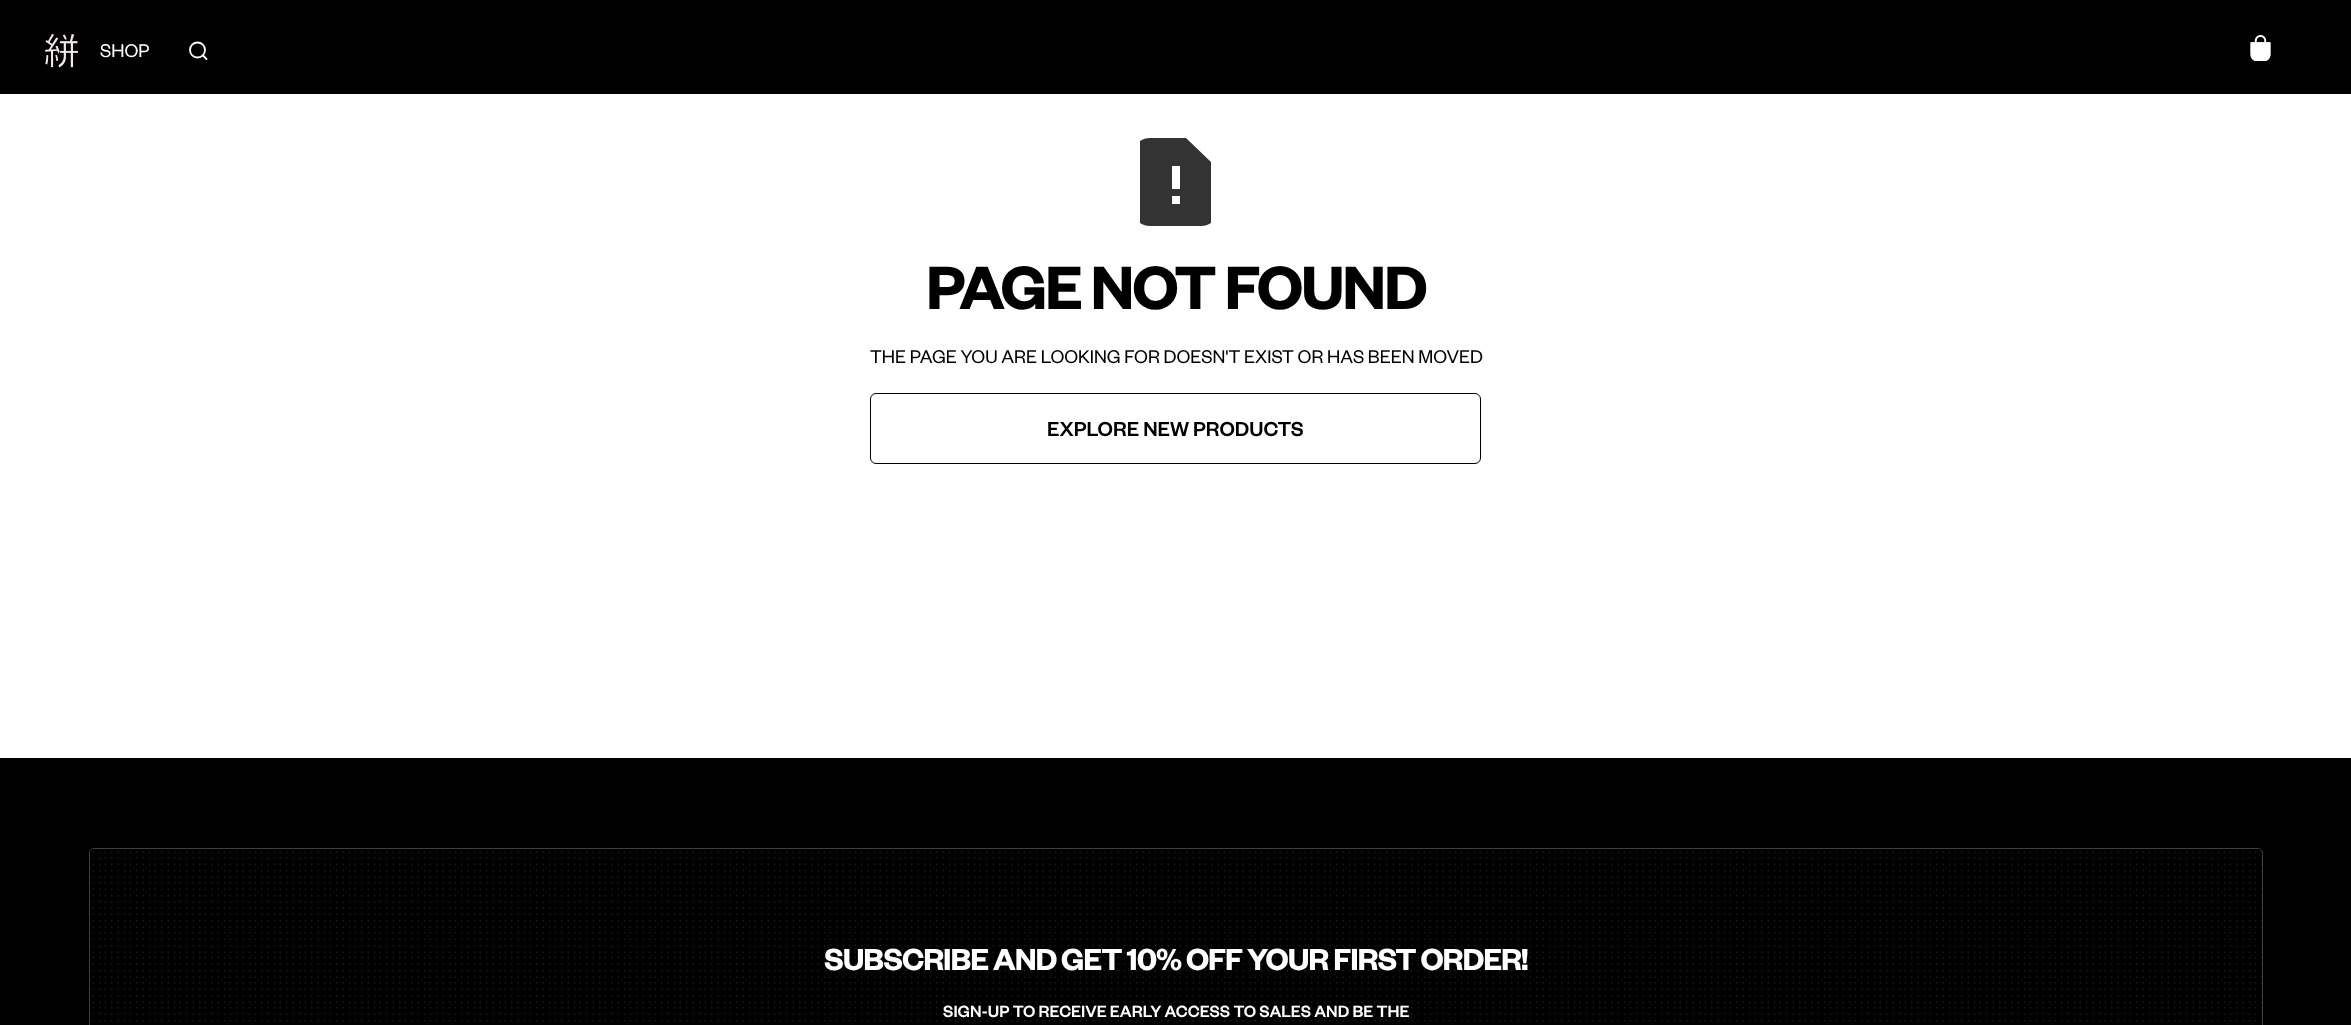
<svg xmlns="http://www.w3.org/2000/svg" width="2351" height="1025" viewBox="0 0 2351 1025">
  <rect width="100%" height="100%" fill="#000000"/>
  <image x="45" y="34" width="33" height="34" href="img1.png"/>
  <text x="100" y="57" font-family="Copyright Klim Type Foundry" font-size="20.1" fill="#ffffff">SHOP</text>
  <circle cx="197.5" cy="50" r="7.5" fill="none" stroke="#ffffff" stroke-width="1.8"/>
  <path d="M206.5 59L203 55.5" fill="none" stroke="#ffffff" stroke-width="1.8" stroke-linecap="round" stroke-linejoin="round"/>
  <image x="2250" y="35" width="21" height="26" href="img2.png"/>
  <rect x="0" y="94" width="2351" height="664" fill="#ffffff"/>
  <path d="M1150 138C1146 138 1143 139 1140 141V223C1143 225 1146 226 1150 226H1201C1205 226 1208 225 1211 223V162L1186 138ZM1172 166V189H1180V166ZM1172 196V204H1180V196Z" fill="#333333" fill-rule="evenodd"/>
  <text x="926" y="309" font-family="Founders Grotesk" font-size="67" font-weight="600" letter-spacing="-2.25" fill="#000000">PAGE NOT FOUND</text>
  <text x="870" y="363" font-family="Copyright Klim Type Foundry" font-size="20.1" fill="#000000">THE PAGE YOU ARE LOOKING FOR DOESN'T EXIST OR HAS BEEN MOVED</text>
  <rect x="870.5" y="393.5" width="610" height="70" rx="5.5" fill="none" stroke="#000000"/>
  <text x="1047" y="436" font-family="Founders Grotesk" font-size="22.25" font-weight="500" fill="#000000">EXPLORE NEW PRODUCTS</text>
  <image x="92" y="851" width="2170" height="171" href="img3.png"/>
  <rect x="89.5" y="848.5" width="2173" height="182" rx="4.5" fill="none" stroke="#413e3e"/>
  <text x="824" y="970" font-family="Founders Grotesk" font-size="33.45" font-weight="600" letter-spacing="-1.1" fill="#ffffff">SUBSCRIBE AND GET 10% OFF YOUR FIRST ORDER!</text>
  <text x="943" y="1017" font-family="Founders Grotesk" font-size="17.85" font-weight="500" fill="#ffffff">SIGN-UP TO RECEIVE EARLY ACCESS TO SALES AND BE THE</text>
</svg>
